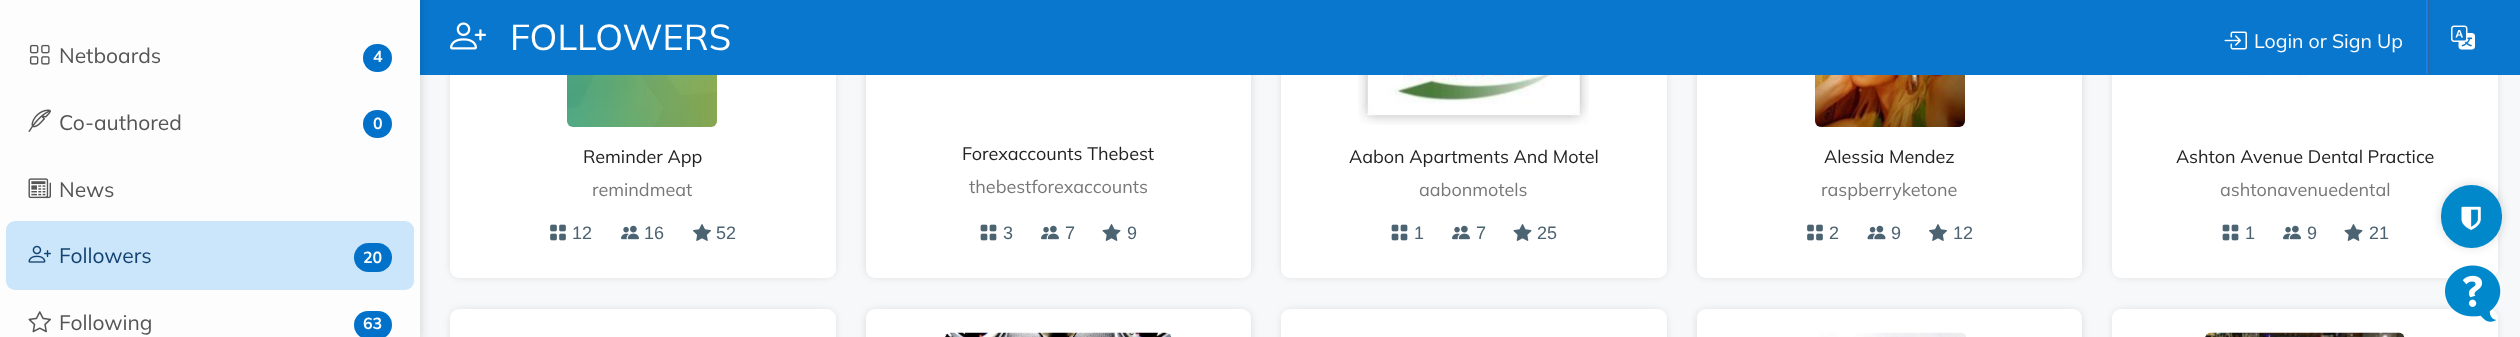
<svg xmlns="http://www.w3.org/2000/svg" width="2520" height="337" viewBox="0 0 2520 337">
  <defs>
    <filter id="blur1" x="-50%" y="-200%" width="200%" height="500%"><feGaussianBlur stdDeviation="4.5"/></filter>
    <filter id="blur2" x="-50%" y="-200%" width="200%" height="500%"><feGaussianBlur stdDeviation="6"/></filter>
    <filter id="blur3" x="-50%" y="-200%" width="200%" height="500%"><feGaussianBlur stdDeviation="4"/></filter>
  </defs>
  <rect width="100%" height="100%" fill="#f7f8f9"/>
  <rect x="452" y="-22" width="382" height="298" rx="8" fill="#000000" fill-opacity="0.15" filter="url(#blur1)"/>
  <rect x="450" y="-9" width="386" height="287" rx="9" fill="#ffffff"/>
  <rect x="867" y="-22" width="383" height="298" rx="8" fill="#000000" fill-opacity="0.15" filter="url(#blur1)"/>
  <rect x="866" y="-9" width="385" height="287" rx="9" fill="#ffffff"/>
  <rect x="1283" y="-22" width="382" height="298" rx="8" fill="#000000" fill-opacity="0.15" filter="url(#blur1)"/>
  <rect x="1281" y="-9" width="386" height="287" rx="9" fill="#ffffff"/>
  <rect x="1698" y="-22" width="383" height="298" rx="8" fill="#000000" fill-opacity="0.15" filter="url(#blur1)"/>
  <rect x="1697" y="-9" width="385" height="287" rx="9" fill="#ffffff"/>
  <rect x="2114" y="-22" width="382" height="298" rx="8" fill="#000000" fill-opacity="0.15" filter="url(#blur1)"/>
  <rect x="2112" y="-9" width="386" height="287" rx="9" fill="#ffffff"/>
  <rect x="420" y="0" width="2100" height="75" fill="#0977ce"/>
  <image x="450" y="22" width="36" height="28" href="img1.png"/>
  <text x="510" y="50" font-family="Mulish" font-size="36" fill="#ffffff">FOLLOWERS</text>
  <image x="2224" y="31" width="23" height="19" href="img2.png"/>
  <text x="2254" y="48" font-family="Mulish" font-size="19.5" fill="#ffffff">Login or Sign Up</text>
  <rect x="2428" y="0" width="1" height="74" fill="#2e6797"/>
  <rect x="2426" y="0" width="2" height="74" fill="#1281ef"/>
  <image x="2451" y="25" width="24" height="25" href="img3.png"/>
  <rect x="-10" y="-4" width="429" height="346" fill="#000000" fill-opacity="0.2" filter="url(#blur2)"/>
  <rect x="0" y="0" width="420" height="337" fill="#fdfdfd"/>
  <image x="29" y="44" width="21" height="21" href="img4.png"/>
  <text x="59" y="63" font-family="Mulish" font-size="21" fill="#555555">Netboards</text>
  <rect x="363" y="44" width="29" height="28" rx="14" fill="#0171ca"/>
  <text x="373" y="62" font-family="Mulish" font-size="16" font-weight="bold" fill="#ffffff">4</text>
  <image x="28" y="109" width="23" height="23" href="img5.png"/>
  <text x="59" y="130" font-family="Mulish" font-size="21" fill="#555555">Co-authored</text>
  <rect x="363" y="110" width="29" height="28" rx="14" fill="#0171ca"/>
  <text x="373" y="129" font-family="Mulish" font-size="16" font-weight="bold" fill="#ffffff">0</text>
  <image x="28" y="178" width="23" height="21" href="img6.png"/>
  <text x="59" y="197" font-family="Mulish" font-size="21" fill="#555555">News</text>
  <rect x="6" y="221" width="408" height="69" rx="9" fill="#cbe5fa"/>
  <image x="28" y="245" width="23" height="18" href="img7.png"/>
  <text x="59" y="263" font-family="Mulish" font-size="21" fill="#134471">Followers</text>
  <rect x="354" y="243" width="38" height="29" rx="14.5" fill="#0171ca"/>
  <text x="363" y="263" font-family="Mulish" font-size="16" font-weight="bold" fill="#ffffff">20</text>
  <image x="28" y="311" width="23" height="22" href="img8.png"/>
  <text x="59" y="330" font-family="Mulish" font-size="21" fill="#555555">Following</text>
  <rect x="354" y="311" width="38" height="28" rx="14" fill="#0171ca"/>
  <text x="363" y="329" font-family="Mulish" font-size="16" font-weight="bold" fill="#ffffff">63</text>
  <image x="567" y="75" width="150" height="52" href="img9.png"/>
  <text x="583" y="163" font-family="Mulish" font-size="18" fill="#222222">Reminder App</text>
  <text x="592" y="196" font-family="Mulish" font-size="18" fill="#777777">remindmeat</text>
  <image x="550" y="224" width="16" height="17" href="img10.png"/>
  <text x="572" y="239" font-family="Liberation Sans" font-size="18" fill="#4c6372">12</text>
  <image x="621" y="225" width="18" height="15" href="img11.png"/>
  <text x="644" y="239" font-family="Liberation Sans" font-size="18" fill="#4c6372">16</text>
  <image x="693" y="224" width="18" height="17" href="img12.png"/>
  <text x="716" y="239" font-family="Liberation Sans" font-size="18" fill="#4c6372">52</text>
  <text x="962" y="160" font-family="Mulish" font-size="18" fill="#222222">Forexaccounts Thebest</text>
  <text x="969" y="193" font-family="Mulish" font-size="18" fill="#777777">thebestforexaccounts</text>
  <image x="980" y="224" width="17" height="17" href="img13.png"/>
  <text x="1003" y="239" font-family="Liberation Sans" font-size="18" fill="#4c6372">3</text>
  <image x="1041" y="225" width="18" height="15" href="img11.png"/>
  <text x="1065" y="239" font-family="Liberation Sans" font-size="18" fill="#4c6372">7</text>
  <image x="1102" y="224" width="19" height="17" href="img14.png"/>
  <text x="1127" y="239" font-family="Liberation Sans" font-size="18" fill="#4c6372">9</text>
  <image x="1358" y="75" width="231" height="50" href="img15.png"/>
  <text x="1349" y="163" font-family="Mulish" font-size="18" fill="#222222">Aabon Apartments And Motel</text>
  <text x="1419" y="196" font-family="Mulish" font-size="18" fill="#777777">aabonmotels</text>
  <image x="1391" y="224" width="17" height="17" href="img13.png"/>
  <text x="1414" y="239" font-family="Liberation Sans" font-size="18" fill="#4c6372">1</text>
  <image x="1452" y="225" width="18" height="15" href="img11.png"/>
  <text x="1476" y="239" font-family="Liberation Sans" font-size="18" fill="#4c6372">7</text>
  <image x="1513" y="224" width="19" height="17" href="img14.png"/>
  <text x="1537" y="239" font-family="Liberation Sans" font-size="18" fill="#4c6372">25</text>
  <image x="1815" y="75" width="150" height="52" href="img16.png"/>
  <text x="1824" y="163" font-family="Mulish" font-size="18" fill="#222222">Alessia Mendez</text>
  <text x="1821" y="196" font-family="Mulish" font-size="18" fill="#777777">raspberryketone</text>
  <image x="1807" y="224" width="16" height="17" href="img10.png"/>
  <text x="1829" y="239" font-family="Liberation Sans" font-size="18" fill="#4c6372">2</text>
  <image x="1867" y="225" width="19" height="15" href="img17.png"/>
  <text x="1891" y="239" font-family="Liberation Sans" font-size="18" fill="#4c6372">9</text>
  <image x="1929" y="224" width="18" height="17" href="img12.png"/>
  <text x="1953" y="239" font-family="Liberation Sans" font-size="18" fill="#4c6372">12</text>
  <image x="2231" y="75" width="149" height="4" href="img18.png"/>
  <text x="2176" y="163" font-family="Mulish" font-size="18" fill="#222222">Ashton Avenue Dental Practice</text>
  <text x="2220" y="196" font-family="Mulish" font-size="18" fill="#777777">ashtonavenuedental</text>
  <image x="2222" y="224" width="17" height="17" href="img13.png"/>
  <text x="2245" y="239" font-family="Liberation Sans" font-size="18" fill="#4c6372">1</text>
  <image x="2283" y="225" width="18" height="15" href="img11.png"/>
  <text x="2307" y="239" font-family="Liberation Sans" font-size="18" fill="#4c6372">9</text>
  <image x="2344" y="224" width="19" height="17" href="img14.png"/>
  <text x="2369" y="239" font-family="Liberation Sans" font-size="18" fill="#4c6372">21</text>
  <rect x="452" y="311" width="382" height="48" rx="8" fill="#000000" fill-opacity="0.15" filter="url(#blur1)"/>
  <rect x="450" y="309" width="386" height="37" rx="9" fill="#ffffff"/>
  <rect x="867" y="311" width="383" height="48" rx="8" fill="#000000" fill-opacity="0.15" filter="url(#blur1)"/>
  <rect x="866" y="309" width="385" height="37" rx="9" fill="#ffffff"/>
  <image x="945" y="332" width="227" height="5" href="img19.png"/>
  <rect x="1283" y="311" width="382" height="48" rx="8" fill="#000000" fill-opacity="0.15" filter="url(#blur1)"/>
  <rect x="1281" y="309" width="386" height="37" rx="9" fill="#ffffff"/>
  <rect x="1698" y="311" width="383" height="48" rx="8" fill="#000000" fill-opacity="0.15" filter="url(#blur1)"/>
  <rect x="1697" y="309" width="385" height="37" rx="9" fill="#ffffff"/>
  <image x="1819" y="332" width="147" height="5" href="img20.png"/>
  <rect x="2114" y="311" width="382" height="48" rx="8" fill="#000000" fill-opacity="0.15" filter="url(#blur1)"/>
  <rect x="2112" y="309" width="386" height="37" rx="9" fill="#ffffff"/>
  <image x="2205" y="332" width="200" height="5" href="img21.png"/>
  <rect x="2439" y="183" width="65" height="66" rx="32.5" fill="#000000" fill-opacity="0.1" filter="url(#blur3)"/>
  <rect x="2441" y="185" width="61" height="63" rx="30.5" fill="#0088cb"/>
  <image x="2461" y="206" width="20" height="24" href="img22.png"/>
  <image x="2445" y="265" width="56" height="57" href="img23.png"/>
</svg>
